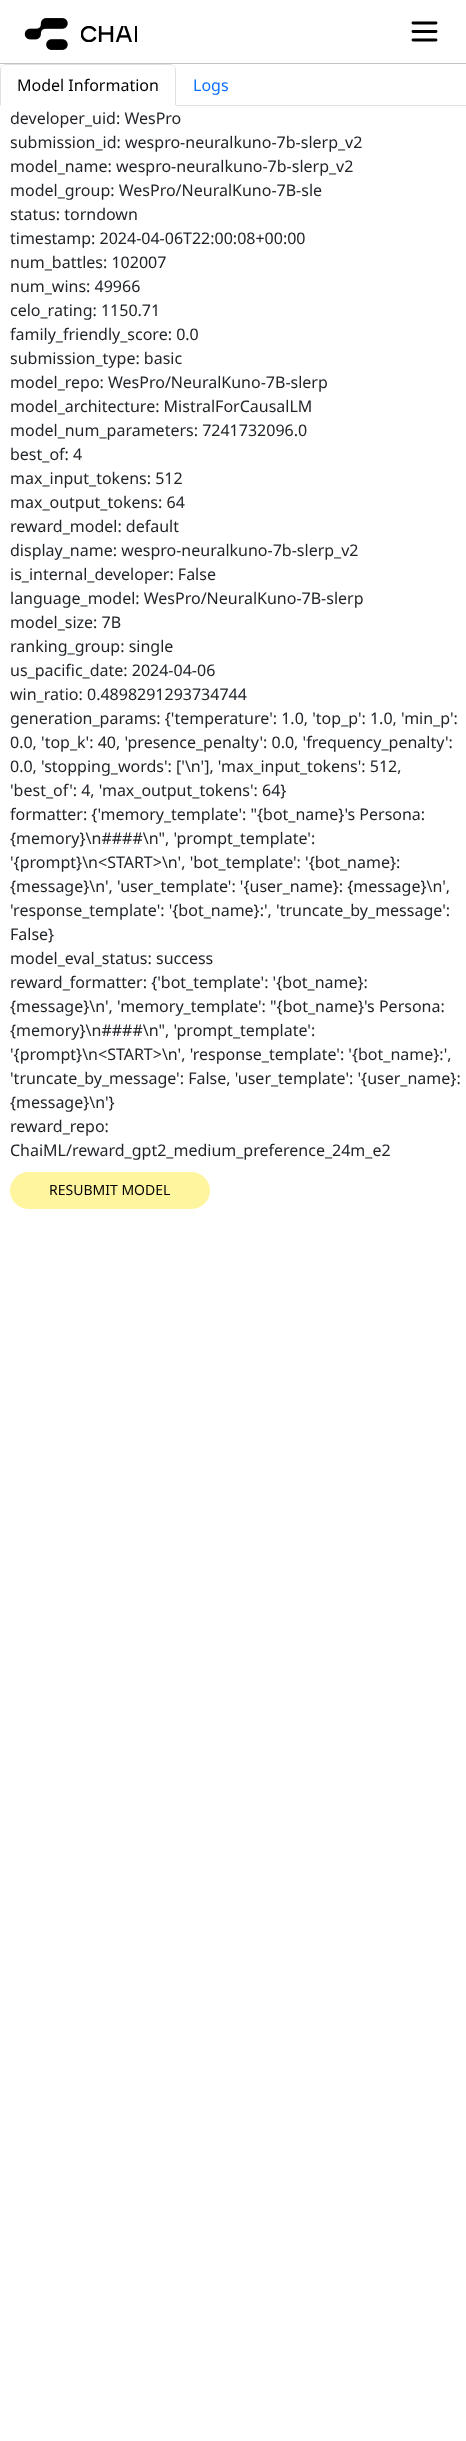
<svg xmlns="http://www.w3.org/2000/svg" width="466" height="2441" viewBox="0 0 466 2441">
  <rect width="100%" height="100%" fill="#ffffff"/>
  <rect x="0" y="63" width="466" height="1" fill="#c4c4c4"/>
  <image x="24" y="18" width="113" height="32" href="img1.png"/>
  <path d="M413 31.5H436M413 23H436M413 40H436" fill="none" stroke="#000000" stroke-width="2.9" stroke-linecap="round" stroke-linejoin="round"/>
  <rect x="176" y="105" width="290" height="1" fill="#dee2e6"/>
  <path d="M6 64C4 64 3 65 2 66C3 66 4 65 6 65H170C172 65 173 66 174 66C173 65 172 64 170 64Z" fill="#dee2e6"/>
  <path d="M176 106V70C176 68 175 67 174 66C174 67 175 68 175 70V105Z" fill="#dee2e6"/>
  <path d="M176 106L175 105H1L0 106Z" fill="#ffffff"/>
  <path d="M0 106L1 105V70C1 68 2 67 2 66C1 67 0 68 0 70Z" fill="#dee2e6"/>
  <text x="17" y="91" font-family="Noto Sans" font-size="16" fill="#000000">Model Information</text>
  <text x="193" y="91" font-family="Noto Sans" font-size="16" fill="#0d6efd">Logs</text>
  <text x="10" y="124" font-family="Noto Sans" font-size="16" fill="#212529">developer_uid: WesPro</text>
  <text x="10" y="148" font-family="Noto Sans" font-size="16" fill="#212529">submission_id: wespro-neuralkuno-7b-slerp_v2</text>
  <text x="10" y="172" font-family="Noto Sans" font-size="16" fill="#212529">model_name: wespro-neuralkuno-7b-slerp_v2</text>
  <text x="10" y="196" font-family="Noto Sans" font-size="16" fill="#212529">model_group: WesPro/NeuralKuno-7B-sle</text>
  <text x="10" y="220" font-family="Noto Sans" font-size="16" fill="#212529">status: torndown</text>
  <text x="10" y="244" font-family="Noto Sans" font-size="16" fill="#212529">timestamp: 2024-04-06T22:00:08+00:00</text>
  <text x="10" y="268" font-family="Noto Sans" font-size="16" fill="#212529">num_battles: 102007</text>
  <text x="10" y="292" font-family="Noto Sans" font-size="16" fill="#212529">num_wins: 49966</text>
  <text x="10" y="316" font-family="Noto Sans" font-size="16" fill="#212529">celo_rating: 1150.71</text>
  <text x="10" y="340" font-family="Noto Sans" font-size="16" fill="#212529">family_friendly_score: 0.0</text>
  <text x="10" y="364" font-family="Noto Sans" font-size="16" fill="#212529">submission_type: basic</text>
  <text x="10" y="388" font-family="Noto Sans" font-size="16" fill="#212529">model_repo: WesPro/NeuralKuno-7B-slerp</text>
  <text x="10" y="412" font-family="Noto Sans" font-size="16" fill="#212529">model_architecture: MistralForCausalLM</text>
  <text x="10" y="436" font-family="Noto Sans" font-size="16" fill="#212529">model_num_parameters: 7241732096.0</text>
  <text x="10" y="460" font-family="Noto Sans" font-size="16" fill="#212529">best_of: 4</text>
  <text x="10" y="484" font-family="Noto Sans" font-size="16" fill="#212529">max_input_tokens: 512</text>
  <text x="10" y="508" font-family="Noto Sans" font-size="16" fill="#212529">max_output_tokens: 64</text>
  <text x="10" y="532" font-family="Noto Sans" font-size="16" fill="#212529">reward_model: default</text>
  <text x="10" y="556" font-family="Noto Sans" font-size="16" fill="#212529">display_name: wespro-neuralkuno-7b-slerp_v2</text>
  <text x="10" y="580" font-family="Noto Sans" font-size="16" fill="#212529">is_internal_developer: False</text>
  <text x="10" y="604" font-family="Noto Sans" font-size="16" fill="#212529">language_model: WesPro/NeuralKuno-7B-slerp</text>
  <text x="10" y="628" font-family="Noto Sans" font-size="16" fill="#212529">model_size: 7B</text>
  <text x="10" y="652" font-family="Noto Sans" font-size="16" fill="#212529">ranking_group: single</text>
  <text x="10" y="676" font-family="Noto Sans" font-size="16" fill="#212529">us_pacific_date: 2024-04-06</text>
  <text x="10" y="700" font-family="Noto Sans" font-size="16" fill="#212529">win_ratio: 0.4898291293734744</text>
  <text x="10" y="724" font-family="Noto Sans" font-size="16" fill="#212529">generation_params: {'temperature': 1.0, 'top_p': 1.0, 'min_p':</text>
  <text x="10" y="748" font-family="Noto Sans" font-size="16" fill="#212529">0.0, 'top_k': 40, 'presence_penalty': 0.0, 'frequency_penalty':</text>
  <text x="10" y="772" font-family="Noto Sans" font-size="16" fill="#212529">0.0, 'stopping_words': ['\n'], 'max_input_tokens': 512,</text>
  <text x="10" y="796" font-family="Noto Sans" font-size="16" fill="#212529">'best_of': 4, 'max_output_tokens': 64}</text>
  <text x="10" y="820" font-family="Noto Sans" font-size="16" fill="#212529">formatter: {'memory_template': "{bot_name}'s Persona:</text>
  <text x="10" y="844" font-family="Noto Sans" font-size="16" fill="#212529">{memory}\n####\n", 'prompt_template':</text>
  <text x="10" y="868" font-family="Noto Sans" font-size="16" fill="#212529">'{prompt}\n&lt;START&gt;\n', 'bot_template': '{bot_name}:</text>
  <text x="10" y="892" font-family="Noto Sans" font-size="16" fill="#212529">{message}\n', 'user_template': '{user_name}: {message}\n',</text>
  <text x="10" y="916" font-family="Noto Sans" font-size="16" fill="#212529">'response_template': '{bot_name}:', 'truncate_by_message':</text>
  <text x="10" y="940" font-family="Noto Sans" font-size="16" fill="#212529">False}</text>
  <text x="10" y="964" font-family="Noto Sans" font-size="16" fill="#212529">model_eval_status: success</text>
  <text x="10" y="988" font-family="Noto Sans" font-size="16" fill="#212529">reward_formatter: {'bot_template': '{bot_name}:</text>
  <text x="10" y="1012" font-family="Noto Sans" font-size="16" fill="#212529">{message}\n', 'memory_template': "{bot_name}'s Persona:</text>
  <text x="10" y="1036" font-family="Noto Sans" font-size="16" fill="#212529">{memory}\n####\n", 'prompt_template':</text>
  <text x="10" y="1060" font-family="Noto Sans" font-size="16" fill="#212529">'{prompt}\n&lt;START&gt;\n', 'response_template': '{bot_name}:',</text>
  <text x="10" y="1084" font-family="Noto Sans" font-size="16" fill="#212529">'truncate_by_message': False, 'user_template': '{user_name}:</text>
  <text x="10" y="1108" font-family="Noto Sans" font-size="16" fill="#212529">{message}\n'}</text>
  <text x="10" y="1132" font-family="Noto Sans" font-size="16" fill="#212529">reward_repo:</text>
  <text x="10" y="1156" font-family="Noto Sans" font-size="16" fill="#212529">ChaiML/reward_gpt2_medium_preference_24m_e2</text>
  <rect x="10" y="1172" width="200" height="37" rx="18.5" fill="#fff59f"/>
  <text x="49" y="1195" font-family="Noto Sans" font-size="14" fill="#000000">RESUBMIT MODEL</text>
</svg>
